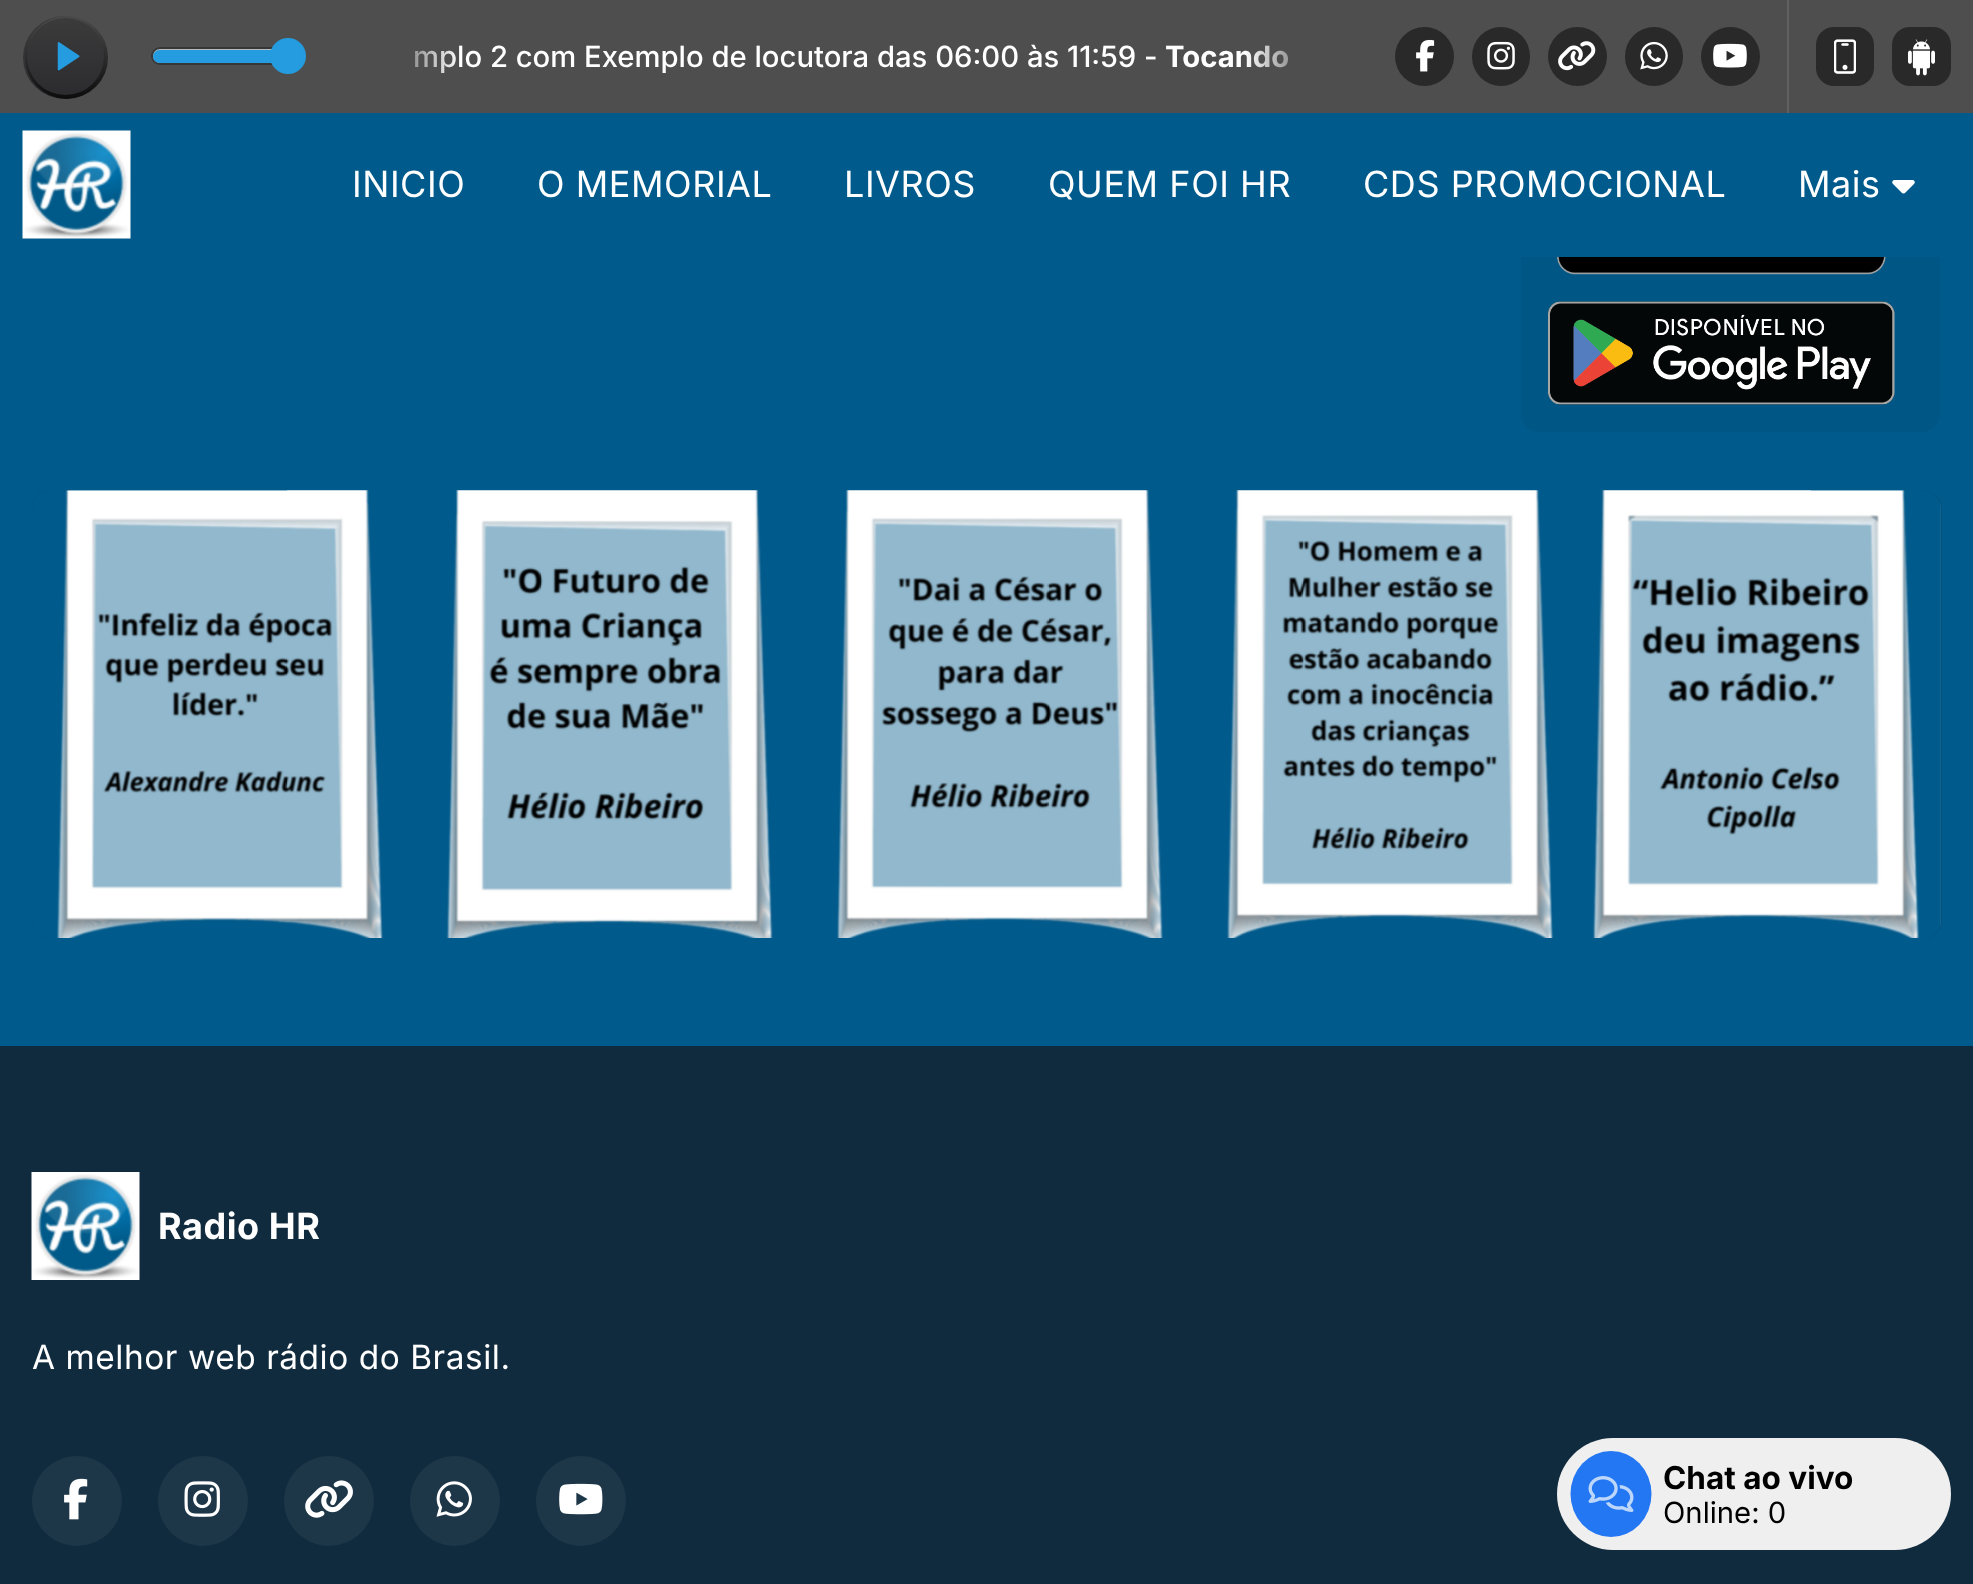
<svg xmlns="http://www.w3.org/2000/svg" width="1973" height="1584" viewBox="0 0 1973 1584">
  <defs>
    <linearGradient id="g1" gradientUnits="userSpaceOnUse" x1="64" y1="16" x2="64" y2="99"><stop offset="0" stop-color="#3b3b3b"/><stop offset="1" stop-color="#2c2c30"/></linearGradient>
    <linearGradient id="g2" gradientUnits="userSpaceOnUse" x1="65" y1="15" x2="65" y2="98"><stop offset="0" stop-color="#4b4b4b"/><stop offset="1" stop-color="#0d0d0d"/></linearGradient>
    <linearGradient id="g3" gradientUnits="userSpaceOnUse" x1="65" y1="18" x2="65" y2="95"><stop offset="0" stop-color="#3b3b3b"/><stop offset="1" stop-color="#2c2c30"/></linearGradient>
    <linearGradient id="g4" gradientUnits="userSpaceOnUse" x1="362" y1="56" x2="461" y2="56"><stop offset="0.2" stop-color="#4e4e4e"/><stop offset="1" stop-color="#4e4e4e" stop-opacity="0"/></linearGradient>
    <linearGradient id="g5" gradientUnits="userSpaceOnUse" x1="1341" y1="56" x2="1244" y2="56"><stop offset="0.2" stop-color="#4e4e4e"/><stop offset="1" stop-color="#4e4e4e" stop-opacity="0"/></linearGradient>
  </defs>
  <rect width="100%" height="100%" fill="#005a8b"/>
  <rect x="1521" y="-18" width="419" height="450" rx="18" fill="#005684"/>
  <rect x="0" y="0" width="1973" height="113" fill="#4e4e4e"/>
  <circle cx="64.5" cy="57.5" r="41.5" fill="url(#g1)"/>
  <circle cx="66.5" cy="57.5" r="41.5" fill="url(#g2)"/>
  <circle cx="65.5" cy="56.5" r="38.5" fill="url(#g3)"/>
  <image x="57" y="42" width="23" height="29" href="img1.png"/>
  <rect x="152" y="48" width="137" height="16" rx="8" fill="#b3b9bc" stroke="#373737" stroke-width="2"/>
  <rect x="153" y="50" width="135" height="13" rx="6.5" fill="#249cdf"/>
  <circle cx="288" cy="56" r="17" fill="#249cdf" stroke="#249cdf" stroke-width="2"/>
  <text x="413" y="67" font-family="Inter" font-size="29.25" font-weight="500" fill="#ffffff">mplo 2 com Exemplo de locutora das 06:00 às 11:59 -</text>
  <text x="1165" y="67" font-family="Inter" font-size="29.25" font-weight="bold" fill="#ffffff">Tocando</text>
  <rect x="414" y="50" width="42" height="23" fill="url(#g4)"/>
  <rect x="1246" y="45" width="43" height="23" fill="url(#g5)"/>
  <circle cx="1424.5" cy="56.5" r="29.5" fill="#292929"/>
  <image x="1416" y="39" width="19" height="33" href="img2.png"/>
  <rect x="1472" y="27" width="58" height="59" rx="29" fill="#292929"/>
  <image x="1487" y="41" width="28" height="29" href="img3.png"/>
  <circle cx="1577.5" cy="56.5" r="29.5" fill="#292929"/>
  <image x="1558" y="41" width="38" height="30" href="img4.png"/>
  <rect x="1625" y="27" width="58" height="59" rx="29" fill="#292929"/>
  <image x="1640" y="41" width="28" height="29" href="img5.png"/>
  <circle cx="1730.5" cy="56.5" r="29.5" fill="#292929"/>
  <image x="1713" y="43" width="34" height="25" href="img6.png"/>
  <rect x="1787" y="0" width="2" height="113" fill="#606060"/>
  <rect x="1816" y="27" width="58" height="59" rx="18" fill="#292929"/>
  <image x="1834" y="39" width="22" height="35" href="img7.png"/>
  <rect x="1892" y="27" width="59" height="59" rx="18" fill="#292929"/>
  <image x="1908" y="39" width="27" height="37" href="img8.png"/>
  <image x="1557" y="257" width="329" height="18" href="img9.png"/>
  <image x="1548" y="301" width="347" height="104" href="img10.png"/>
  <rect x="1521" y="113" width="419" height="144" fill="#005a8b"/>
  <image x="22" y="130" width="109" height="109" href="img11.png"/>
  <text x="352" y="197" font-family="Inter" font-size="36" letter-spacing="0.55" fill="#ffffff">INICIO</text>
  <text x="537" y="197" font-family="Inter" font-size="36" letter-spacing="0.55" fill="#ffffff">O MEMORIAL</text>
  <text x="844" y="197" font-family="Inter" font-size="36" letter-spacing="0.55" fill="#ffffff">LIVROS</text>
  <text x="1048" y="197" font-family="Inter" font-size="36" letter-spacing="0.55" fill="#ffffff">QUEM FOI HR</text>
  <text x="1363" y="197" font-family="Inter" font-size="36" letter-spacing="0.55" fill="#ffffff">CDS PROMOCIONAL</text>
  <text x="1798" y="197" font-family="Inter" font-size="36" letter-spacing="0.55" fill="#ffffff">Mais</text>
  <image x="1892" y="180" width="23" height="14" href="img12.png"/>
  <rect x="32" y="491" width="1910" height="447" rx="18" fill="#004c75"/>
  <image x="32" y="490" width="1910" height="448" href="img13.png"/>
  <rect x="0" y="1046" width="1973" height="538" fill="#112b3e"/>
  <image x="31" y="1172" width="109" height="108" href="img14.png"/>
  <text x="158" y="1239" font-family="Inter" font-size="36" font-weight="bold" letter-spacing="0.55" fill="#ffffff">Radio HR</text>
  <text x="32" y="1369" font-family="Inter" font-size="33.4" letter-spacing="0.55" fill="#ffffff">A melhor web rádio do Brasil.</text>
  <circle cx="77" cy="1501" r="45" fill="#1d3648"/>
  <image x="64" y="1478" width="24" height="42" href="img15.png"/>
  <circle cx="203" cy="1501" r="45" fill="#1d3648"/>
  <image x="184" y="1481" width="36" height="36" href="img16.png"/>
  <circle cx="329" cy="1501" r="45" fill="#1d3648"/>
  <image x="305" y="1480" width="48" height="38" href="img17.png"/>
  <circle cx="455" cy="1501" r="45" fill="#1d3648"/>
  <image x="436" y="1481" width="36" height="36" href="img18.png"/>
  <circle cx="581" cy="1501" r="45" fill="#1d3648"/>
  <image x="559" y="1483" width="44" height="32" href="img19.png"/>
  <rect x="1557" y="1438" width="394" height="112" rx="56" fill="#efefef"/>
  <ellipse cx="1611" cy="1494" rx="40.5" ry="43" fill="#2377f3"/>
  <image x="1588" y="1476" width="46" height="36" href="img20.png"/>
  <text x="1663" y="1489" font-family="Inter" font-size="31.5" font-weight="bold" fill="#000000">Chat ao vivo</text>
  <text x="1663" y="1523" font-family="Inter" font-size="29.25" fill="#000000">Online: 0</text>
</svg>
